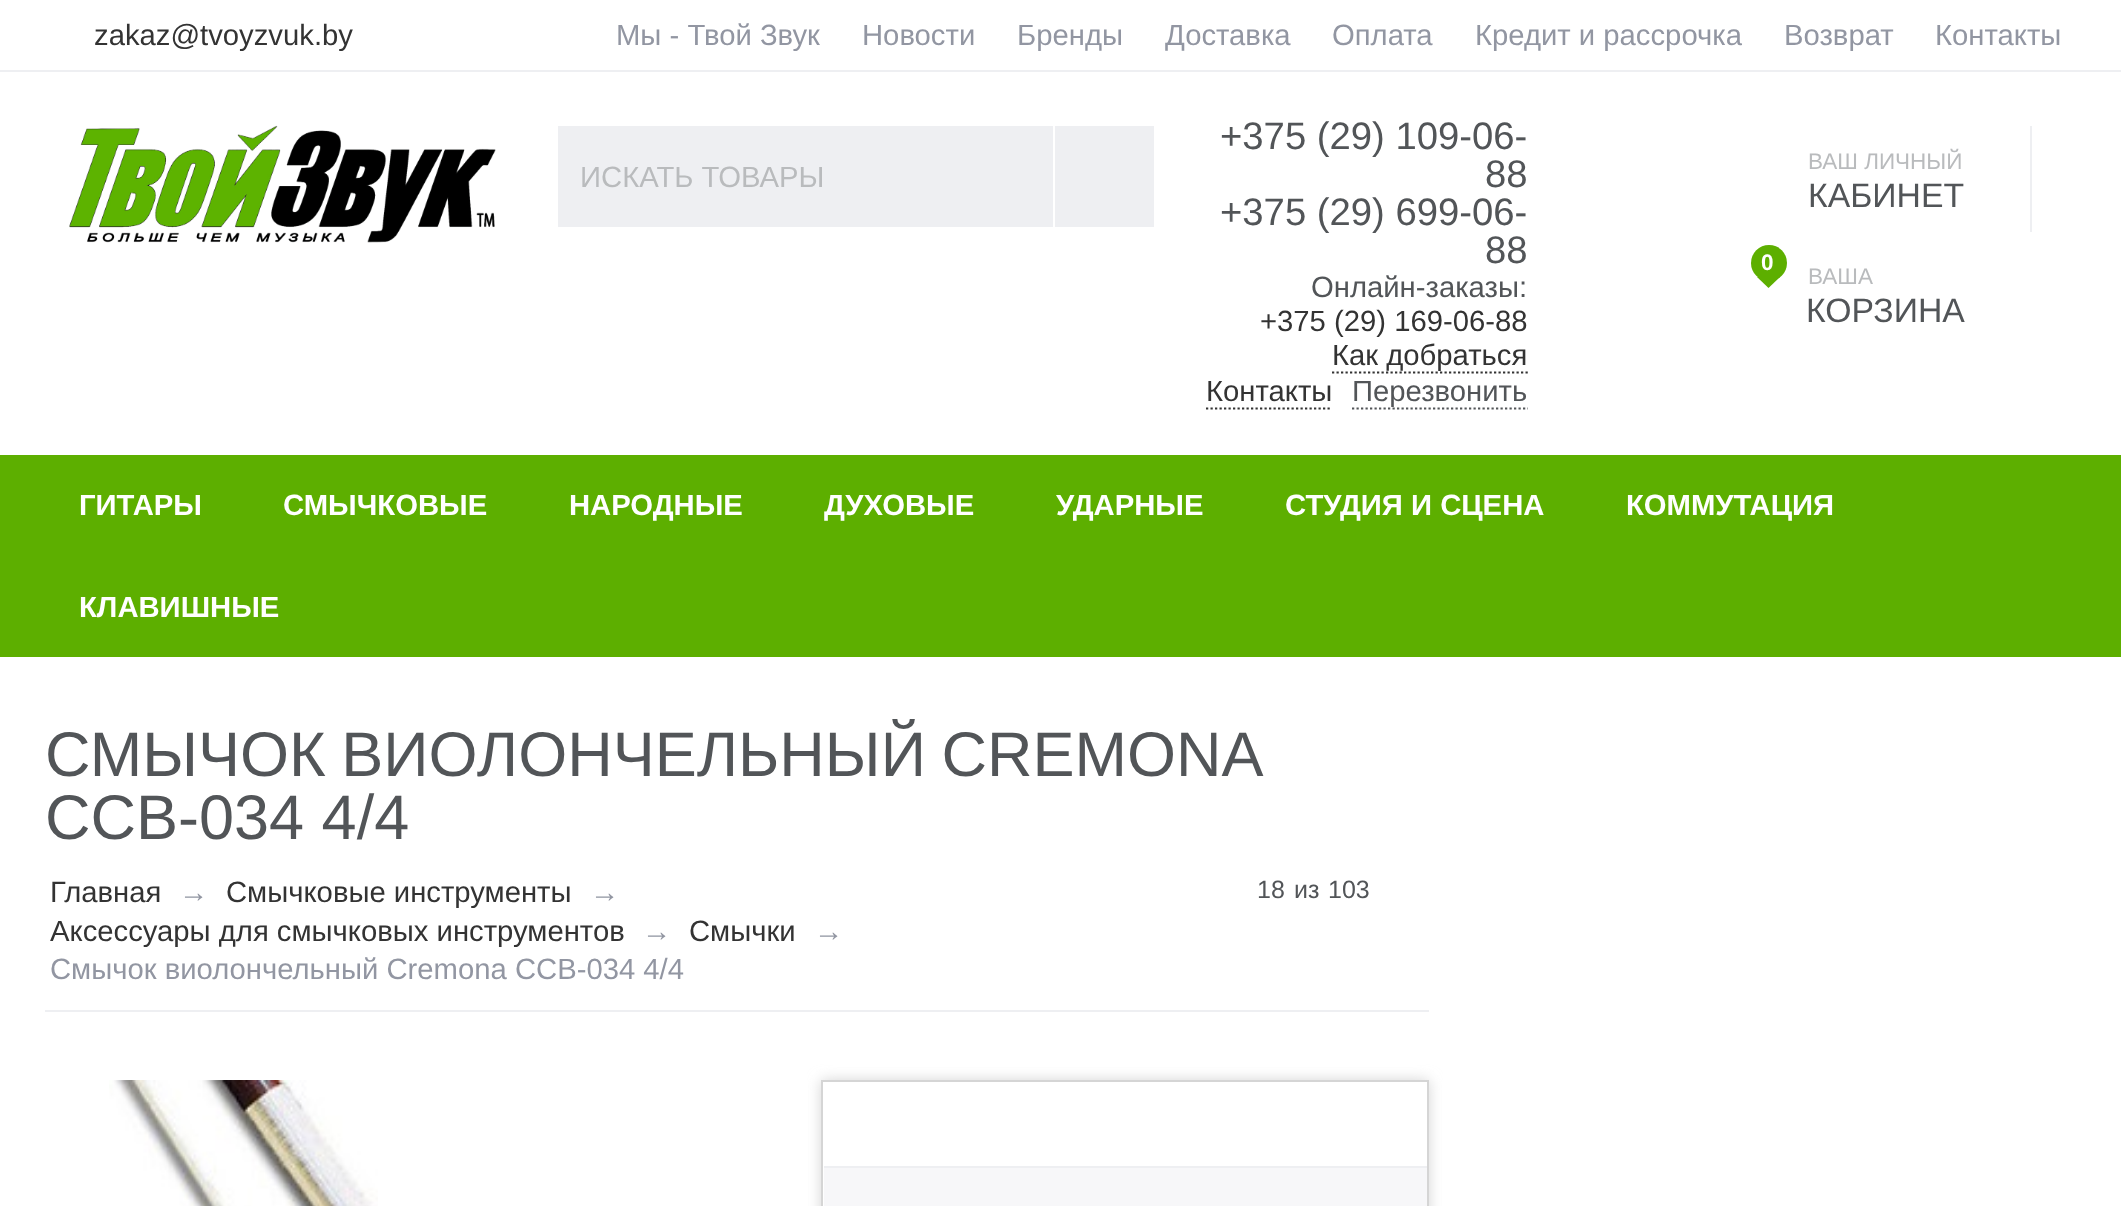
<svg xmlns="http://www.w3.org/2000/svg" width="2121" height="1206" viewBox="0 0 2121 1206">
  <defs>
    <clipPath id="clip1"><path d="M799 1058H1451V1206H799ZM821 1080H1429V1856H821Z" clip-rule="evenodd"/></clipPath>
    <filter id="blur1" x="-50%" y="-200%" width="200%" height="500%"><feGaussianBlur stdDeviation="7"/></filter>
  </defs>
  <rect width="100%" height="100%" fill="#ffffff"/>
  <rect x="0" y="70" width="2121" height="2" fill="#eeeff2"/>
  <text x="94" y="45" font-family="Liberation Sans" font-size="29.25" fill="#333333">zakaz@tvoyzvuk.by</text>
  <text x="616" y="45" font-family="Liberation Sans" font-size="29.25" fill="#9296a2">Мы - Твой Звук</text>
  <text x="862" y="45" font-family="Liberation Sans" font-size="29.25" fill="#9296a2">Новости</text>
  <text x="1017" y="45" font-family="Liberation Sans" font-size="29.25" fill="#9296a2">Бренды</text>
  <text x="1165" y="45" font-family="Liberation Sans" font-size="29.25" fill="#9296a2">Доставка</text>
  <text x="1332" y="45" font-family="Liberation Sans" font-size="29.25" fill="#9296a2">Оплата</text>
  <text x="1475" y="45" font-family="Liberation Sans" font-size="29.25" fill="#9296a2">Кредит и рассрочка</text>
  <text x="1784" y="45" font-family="Liberation Sans" font-size="29.25" fill="#9296a2">Возврат</text>
  <text x="1935" y="45" font-family="Liberation Sans" font-size="29.25" fill="#9296a2">Контакты</text>
  <image x="69" y="125" width="427" height="118" href="img1.png"/>
  <rect x="558" y="126" width="495" height="101" fill="#eeeff2"/>
  <text x="580" y="187" font-family="Liberation Sans" font-size="29.25" fill="#b9bbbd">ИСКАТЬ ТОВАРЫ</text>
  <rect x="1055" y="126" width="99" height="101" fill="#eeeff2"/>
  <text x="1220" y="149" font-family="Liberation Sans" font-size="38.25" fill="#525558">+375 (29) 109-06-</text>
  <text x="1485" y="187" font-family="Liberation Sans" font-size="38.25" fill="#525558">88</text>
  <text x="1220" y="225" font-family="Liberation Sans" font-size="38.25" fill="#525558">+375 (29) 699-06-</text>
  <text x="1485" y="263" font-family="Liberation Sans" font-size="38.25" fill="#525558">88</text>
  <text x="1311" y="297" font-family="Liberation Sans" font-size="29.25" fill="#525558">Онлайн-заказы:</text>
  <text x="1260" y="331" font-family="Liberation Sans" font-size="29.25" fill="#333333">+375 (29) 169-06-88</text>
  <path d="M1332 372.5H1528" fill="none" stroke="#333333" stroke-width="2.2" stroke-dasharray="2.25 2.25"/>
  <text x="1332" y="365" font-family="Liberation Sans" font-size="29.25" fill="#333333">Как добраться</text>
  <path d="M1206 408.5H1332" fill="none" stroke="#333333" stroke-width="2.2" stroke-dasharray="2.25 2.25"/>
  <text x="1206" y="401" font-family="Liberation Sans" font-size="29.25" fill="#333333">Контакты</text>
  <path d="M1352 408.5H1528" fill="none" stroke="#525558" stroke-width="2.2" stroke-dasharray="2.25 2.25"/>
  <text x="1352" y="401" font-family="Liberation Sans" font-size="29.25" fill="#525558">Перезвонить</text>
  <rect x="2030" y="126" width="2" height="106" fill="#eeeff2"/>
  <text x="1808" y="169" font-family="Liberation Sans" font-size="22.5" fill="#b9bbbd">ВАШ ЛИЧНЫЙ</text>
  <text x="1808" y="207" font-family="Liberation Sans" font-size="33.75" fill="#525558">КАБИНЕТ</text>
  <circle cx="1769" cy="263" r="18" fill="#5daf00"/>
  <text x="1761" y="270" font-family="Liberation Sans" font-size="22.5" font-weight="bold" fill="#ffffff">0</text>
  <path d="M1757 277H1780L1768.5 288Z" fill="#5daf00"/>
  <text x="1808" y="284" font-family="Liberation Sans" font-size="22.5" fill="#b9bbbd">ВАША</text>
  <text x="1806" y="322" font-family="Liberation Sans" font-size="33.75" fill="#525558">КОРЗИНА</text>
  <rect x="0" y="455" width="2121" height="202" fill="#5daf00"/>
  <text x="79" y="515" font-family="Liberation Sans" font-size="29.25" font-weight="bold" fill="#ffffff">ГИТАРЫ</text>
  <text x="283" y="515" font-family="Liberation Sans" font-size="29.25" font-weight="bold" fill="#ffffff">СМЫЧКОВЫЕ</text>
  <text x="569" y="515" font-family="Liberation Sans" font-size="29.25" font-weight="bold" fill="#ffffff">НАРОДНЫЕ</text>
  <text x="824" y="515" font-family="Liberation Sans" font-size="29.25" font-weight="bold" fill="#ffffff">ДУХОВЫЕ</text>
  <text x="1056" y="515" font-family="Liberation Sans" font-size="29.25" font-weight="bold" fill="#ffffff">УДАРНЫЕ</text>
  <text x="1285" y="515" font-family="Liberation Sans" font-size="29.25" font-weight="bold" fill="#ffffff">СТУДИЯ И СЦЕНА</text>
  <text x="1626" y="515" font-family="Liberation Sans" font-size="29.25" font-weight="bold" fill="#ffffff">КОММУТАЦИЯ</text>
  <text x="79" y="617" font-family="Liberation Sans" font-size="29.25" font-weight="bold" fill="#ffffff">КЛАВИШНЫЕ</text>
  <text x="45" y="776" word-spacing="-2" font-family="Liberation Sans" font-size="63" fill="#525558">СМЫЧОК ВИОЛОНЧЕЛЬНЫЙ CREMONA</text>
  <text x="45" y="839" font-family="Liberation Sans" font-size="63" fill="#525558">CCB-034 4/4</text>
  <rect x="45" y="1010" width="1384" height="2" fill="#eeeff2"/>
  <text x="50" y="902" font-family="Liberation Sans" font-size="29.25" fill="#333333">Главная</text>
  <text x="179" y="902" font-family="Liberation Sans" font-size="29.25" fill="#9296a2">→</text>
  <text x="226" y="902" font-family="Liberation Sans" font-size="29.25" fill="#333333">Смычковые инструменты</text>
  <text x="590" y="902" font-family="Liberation Sans" font-size="29.25" fill="#9296a2">→</text>
  <text x="1257" y="898" font-family="Liberation Sans" font-size="25" fill="#525558">18</text>
  <text x="1294" y="898" font-family="Liberation Sans" font-size="25" fill="#525558">из</text>
  <text x="1328" y="898" font-family="Liberation Sans" font-size="25" fill="#525558">103</text>
  <text x="50" y="941" font-family="Liberation Sans" font-size="29.25" fill="#333333">Аксессуары для смычковых инструментов</text>
  <text x="642" y="941" font-family="Liberation Sans" font-size="29.25" fill="#9296a2">→</text>
  <text x="689" y="941" font-family="Liberation Sans" font-size="29.25" fill="#333333">Смычки</text>
  <text x="814" y="941" font-family="Liberation Sans" font-size="29.25" fill="#9296a2">→</text>
  <text x="50" y="979" font-family="Liberation Sans" font-size="29.25" fill="#9296a2">Смычок виолончельный Cremona CCB-034 4/4</text>
  <image x="109" y="1080" width="269" height="126" href="img2.png"/>
  <g clip-path="url(#clip1)">
    <rect x="821" y="1080" width="608" height="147" fill="#d5d5d5" filter="url(#blur1)"/>
  </g>
  <rect x="822" y="1081" width="606" height="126" fill="none" stroke="#d5d5d5" stroke-width="2"/>
  <rect x="824" y="1168" width="603" height="38" fill="#f7f7f9"/>
  <rect x="824" y="1166" width="603" height="2" fill="#eeeff2"/>
</svg>
